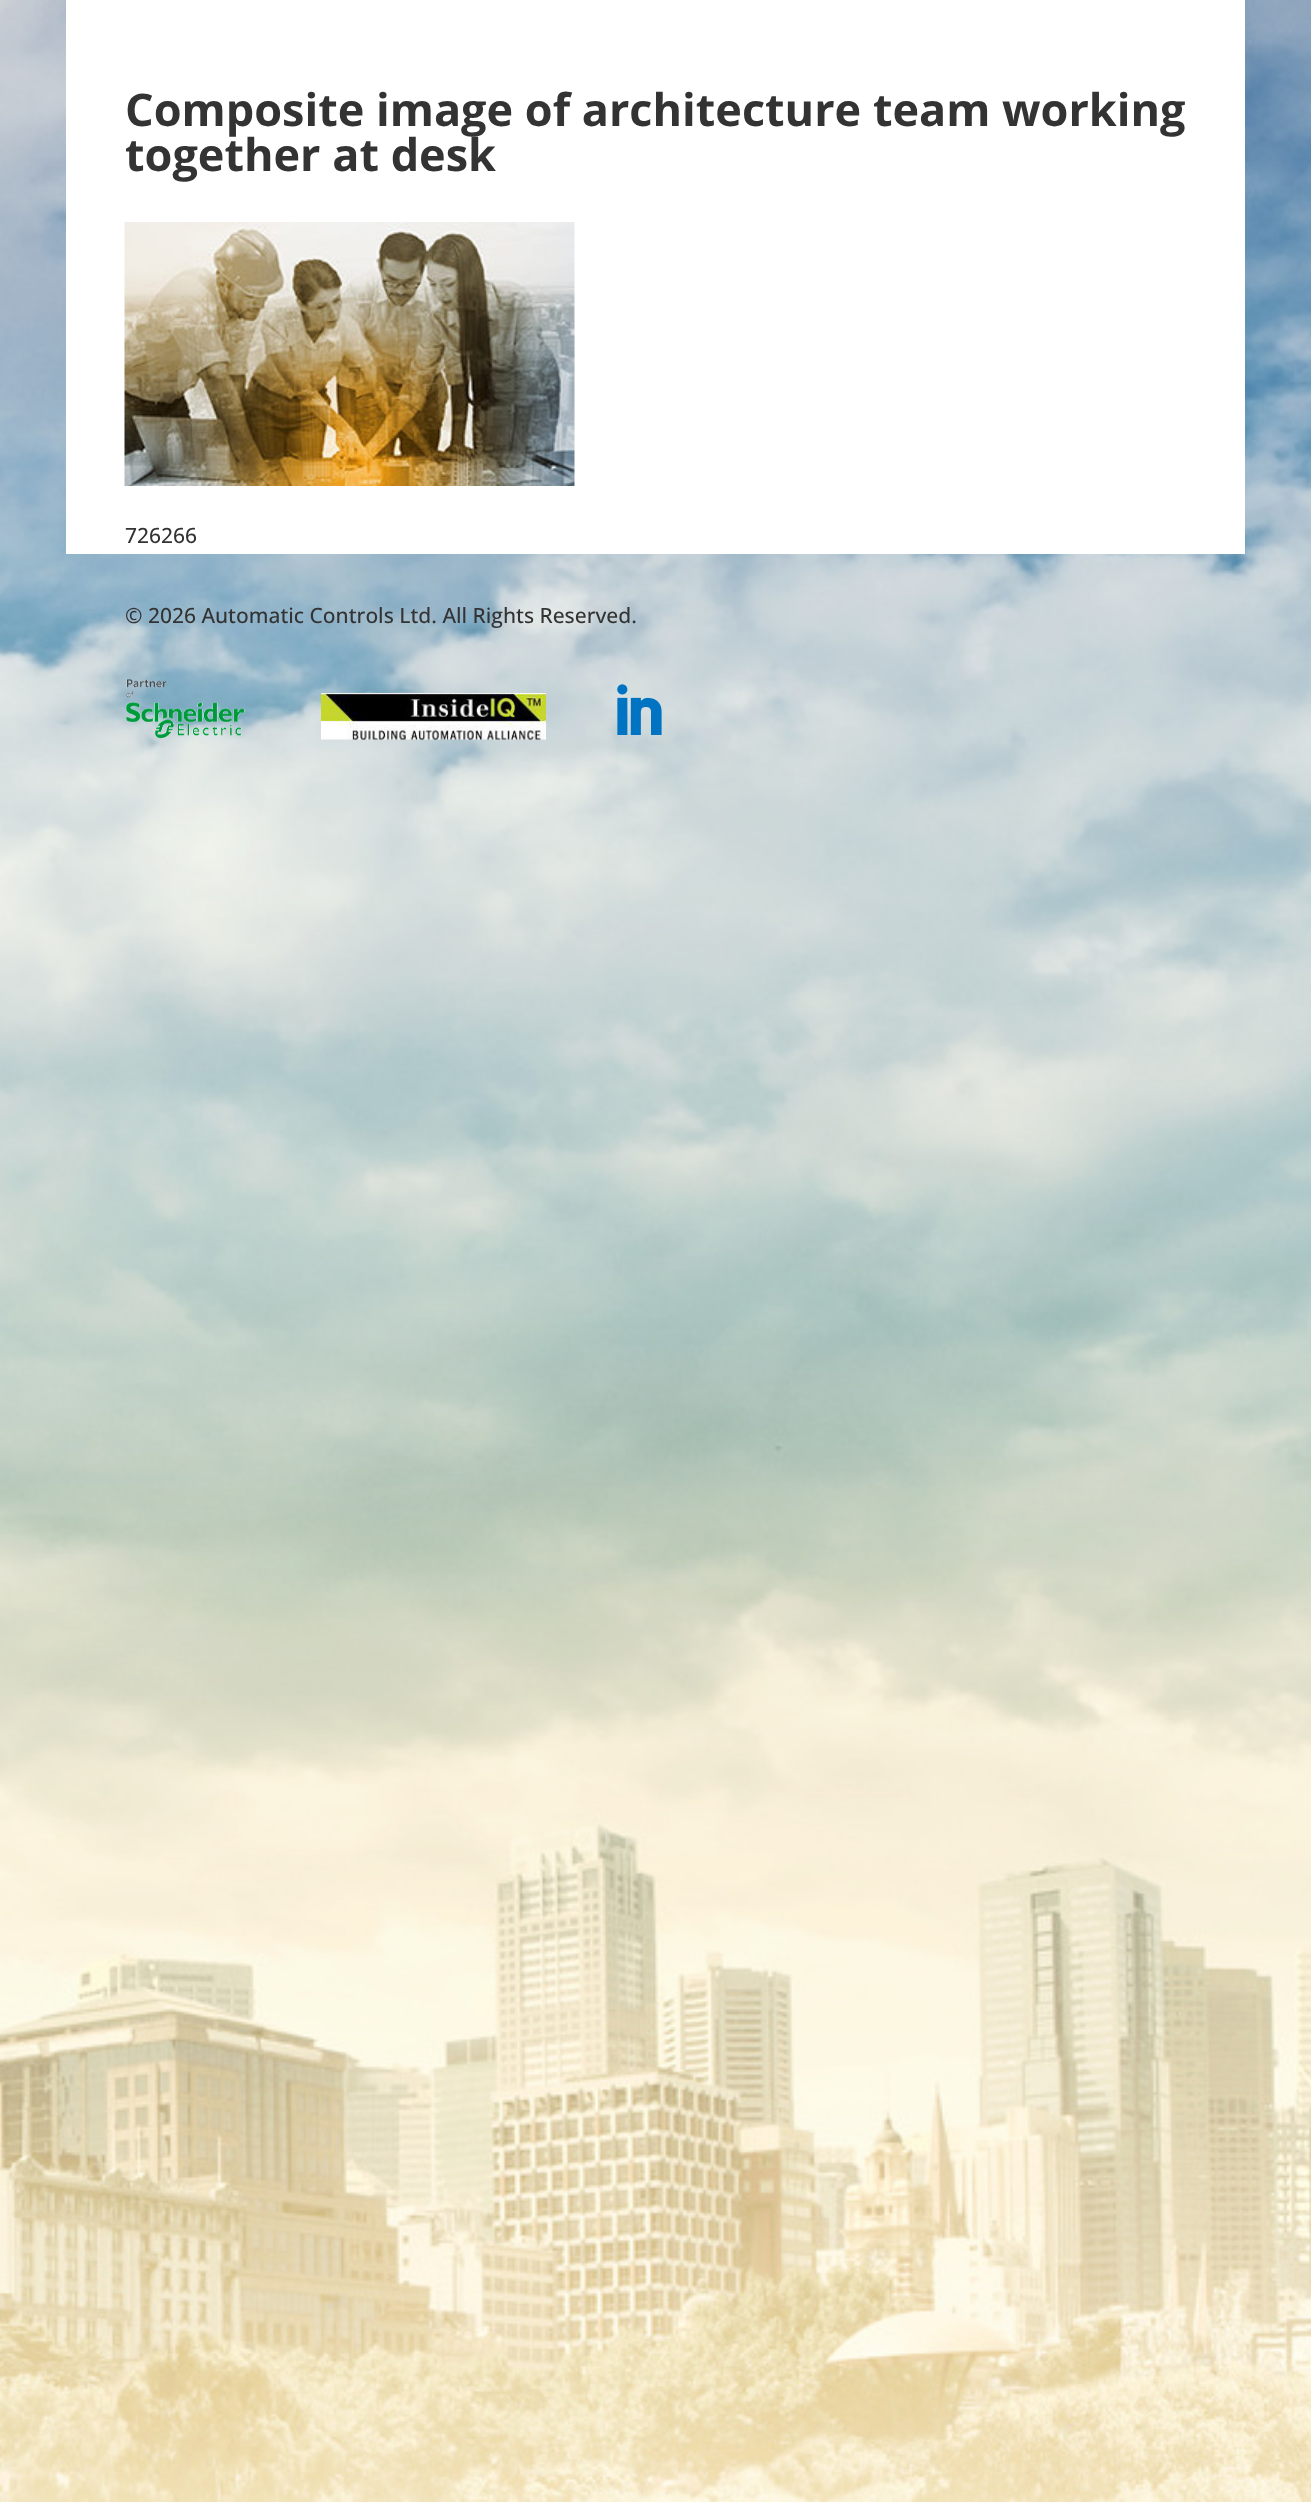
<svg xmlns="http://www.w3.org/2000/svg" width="1311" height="2502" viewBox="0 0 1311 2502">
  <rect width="100%" height="100%" fill="#ffffff"/>
  <image x="0" y="0" width="1311" height="2502" href="img1.png"/>
  <rect x="66" y="0" width="1179" height="554" fill="#ffffff"/>
  <text x="125" y="126" font-family="Open Sans" font-size="45" font-weight="bold" fill="#333333">Composite image of architecture team working</text>
  <text x="125" y="171" font-family="Open Sans" font-size="45" font-weight="bold" fill="#333333">together at desk</text>
  <image x="124" y="222" width="451" height="264" href="img2.png"/>
  <text x="125" y="543" font-family="Open Sans" font-size="21" font-weight="500" fill="#333333">726266</text>
  <text x="125" y="623" font-family="Open Sans" font-size="21" font-weight="500" fill="#333333">© 2026 Automatic Controls Ltd. All Rights Reserved.</text>
  <image x="126" y="679" width="119" height="60" href="img3.png"/>
  <image x="321" y="693" width="225" height="47" href="img4.png"/>
  <image x="617" y="684" width="45" height="51" href="img5.png"/>
</svg>
